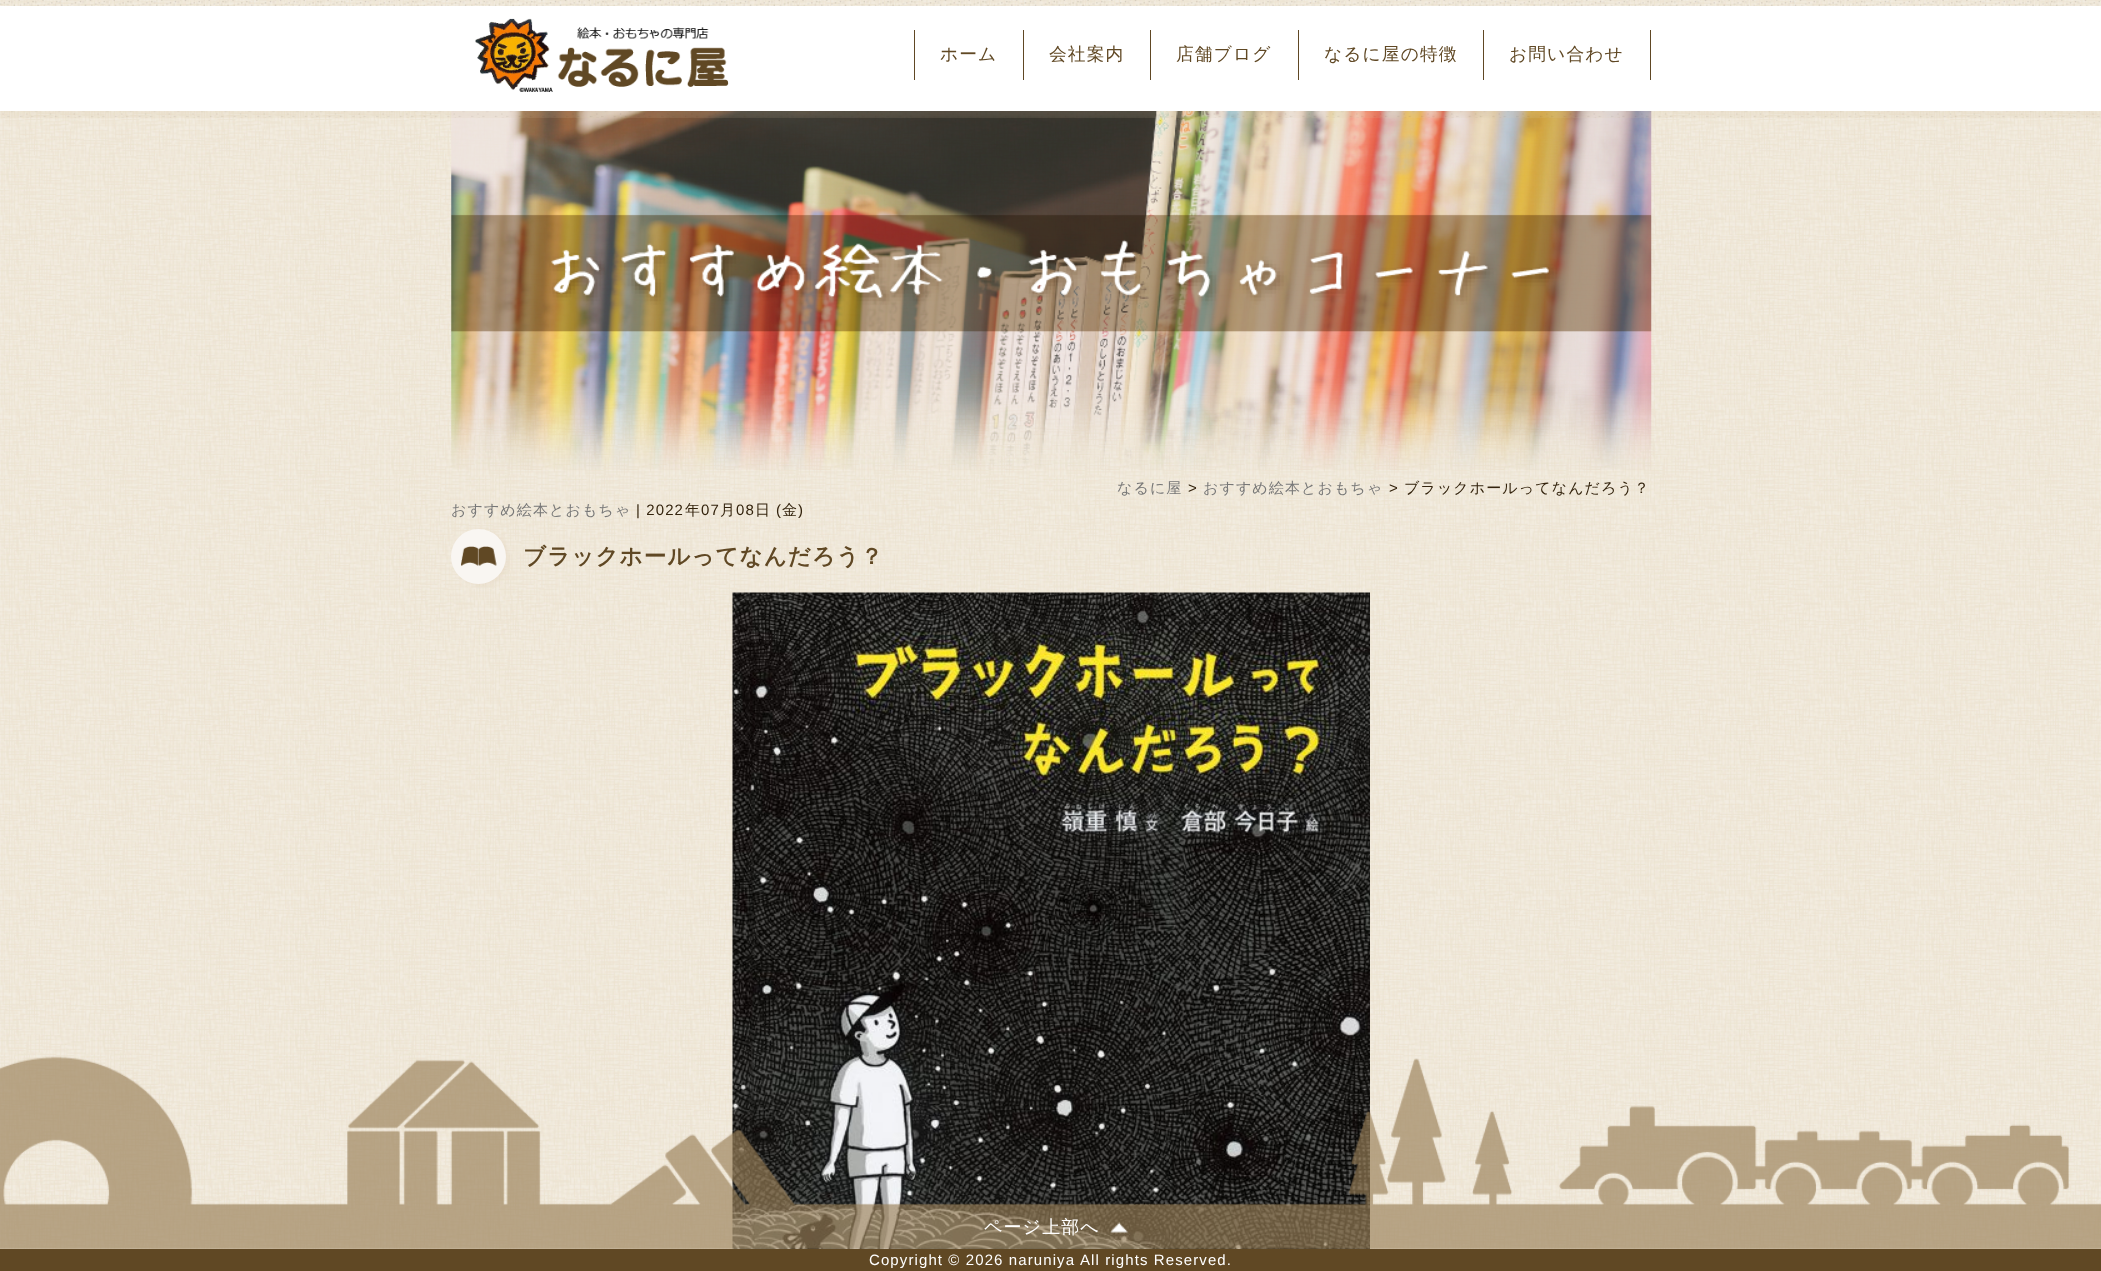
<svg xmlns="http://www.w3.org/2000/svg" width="2101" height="1271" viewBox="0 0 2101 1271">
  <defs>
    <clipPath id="clip1"><rect x="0" y="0" width="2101" height="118"/></clipPath>
    <filter id="blur1" x="-50%" y="-200%" width="200%" height="500%"><feGaussianBlur stdDeviation="3"/></filter>
    <filter id="blur2" x="-50%" y="-200%" width="200%" height="500%"><feGaussianBlur stdDeviation="2"/></filter>
  </defs>
  <rect width="100%" height="100%" fill="#ffffff"/>
  <image x="0" y="0" width="2101" height="1249" href="img1.png"/>
  <image x="451" y="111" width="1201" height="359" href="img4.png"/>
  <image x="0" y="0" width="2100" height="118" href="img2.png"/>
  <g clip-path="url(#clip1)">
    <rect x="0" y="15" width="2101" height="105" fill="#d4c1a5" fill-opacity="0.17" filter="url(#blur1)"/>
  </g>
  <rect x="0" y="6" width="2101" height="105" fill="#ffffff"/>
  <image x="475" y="18" width="254" height="74" href="img3.png"/>
  <rect x="1023" y="30" width="1" height="50" fill="#604824"/>
  <rect x="914" y="30" width="1" height="50" fill="#604824"/>
  <text x="940" y="60" font-family="WenQuanYi Zen Hei" font-size="17.75" font-weight="500" letter-spacing="1.1" fill="#604824">ホーム</text>
  <rect x="1150" y="30" width="1" height="50" fill="#604824"/>
  <text x="1049" y="60" font-family="WenQuanYi Zen Hei" font-size="17.75" font-weight="500" letter-spacing="1.1" fill="#604824">会社案内</text>
  <rect x="1298" y="30" width="1" height="50" fill="#604824"/>
  <text x="1176" y="60" font-family="WenQuanYi Zen Hei" font-size="17.75" font-weight="500" letter-spacing="1.1" fill="#604824">店舗ブログ</text>
  <rect x="1483" y="30" width="1" height="50" fill="#604824"/>
  <text x="1324" y="60" font-family="WenQuanYi Zen Hei" font-size="17.75" font-weight="500" letter-spacing="1.1" fill="#604824">なるに屋の特徴</text>
  <rect x="1650" y="30" width="1" height="50" fill="#604824"/>
  <text x="1509" y="60" font-family="WenQuanYi Zen Hei" font-size="17.75" font-weight="500" letter-spacing="1.1" fill="#604824">お問い合わせ</text>
  <text x="1117" y="493" font-family="WenQuanYi Zen Hei" font-size="15" font-weight="500" letter-spacing="1.1" fill="#777777">なるに屋</text>
  <text x="1188" y="493" font-family="Liberation Sans" font-size="15" letter-spacing="1.1" fill="#33230d">&gt;</text>
  <text x="1203" y="493" font-family="WenQuanYi Zen Hei" font-size="15" font-weight="500" letter-spacing="1.1" fill="#777777">おすすめ絵本とおもちゃ</text>
  <text x="1389" y="493" font-family="Liberation Sans" font-size="15" letter-spacing="1.1" fill="#33230d">&gt;</text>
  <text x="1404" y="493" font-family="WenQuanYi Zen Hei" font-size="15" font-weight="500" letter-spacing="1.1" fill="#33230d">ブラックホールってなんだろう？</text>
  <text x="451" y="515" font-family="WenQuanYi Zen Hei" font-size="15" font-weight="500" letter-spacing="1.1" fill="#777777">おすすめ絵本とおもちゃ</text>
  <text x="636" y="515" font-family="Liberation Sans" font-size="15" letter-spacing="1.1" fill="#33230d">| 2022</text>
  <text x="685" y="515" font-family="WenQuanYi Zen Hei" font-size="15" font-weight="500" letter-spacing="1.1" fill="#33230d">年</text>
  <text x="701" y="515" font-family="Liberation Sans" font-size="15" letter-spacing="1.1" fill="#33230d">07</text>
  <text x="720" y="515" font-family="WenQuanYi Zen Hei" font-size="15" font-weight="500" letter-spacing="1.1" fill="#33230d">月</text>
  <text x="736" y="515" font-family="Liberation Sans" font-size="15" letter-spacing="1.1" fill="#33230d">08</text>
  <text x="755" y="515" font-family="WenQuanYi Zen Hei" font-size="15" font-weight="500" letter-spacing="1.1" fill="#33230d">日</text>
  <text x="776" y="515" font-family="Liberation Sans" font-size="15" letter-spacing="1.1" fill="#33230d">(</text>
  <text x="782" y="515" font-family="WenQuanYi Zen Hei" font-size="15" font-weight="500" letter-spacing="1.1" fill="#33230d">金</text>
  <text x="798" y="515" font-family="Liberation Sans" font-size="15" letter-spacing="1.1" fill="#33230d">)</text>
  <rect x="454" y="531" width="55" height="55" rx="27.5" fill="#d4c1a5" fill-opacity="0.22" filter="url(#blur2)"/>
  <circle cx="478.5" cy="556.5" r="27.5" fill="#f9f6f2"/>
  <image x="461" y="546" width="36" height="20" href="img5.png"/>
  <text x="523" y="564" font-family="WenQuanYi Zen Hei" font-size="22.5" font-weight="bold" letter-spacing="1.1" fill="#604824">ブラックホールってなんだろう？</text>
  <image x="732" y="592" width="638" height="657" href="img6.png"/>
  <image x="0" y="1056" width="2101" height="193" href="img7.png"/>
  <text x="984" y="1233" font-family="WenQuanYi Zen Hei" font-size="18" font-weight="500" letter-spacing="1.1" fill="#ffffff">ページ上部へ</text>
  <image x="1110" y="1222" width="18" height="11" href="img8.png"/>
  <rect x="0" y="1249" width="2101" height="22" fill="#604824"/>
  <text x="869" y="1265" font-family="Liberation Sans" font-size="15" letter-spacing="1.1" fill="#ffffff">Copyright © 2026 naruniya</text>
  <text x="1080" y="1265" font-family="Liberation Sans" font-size="15" letter-spacing="1.1" fill="#ffffff">All rights Reserved.</text>
</svg>
